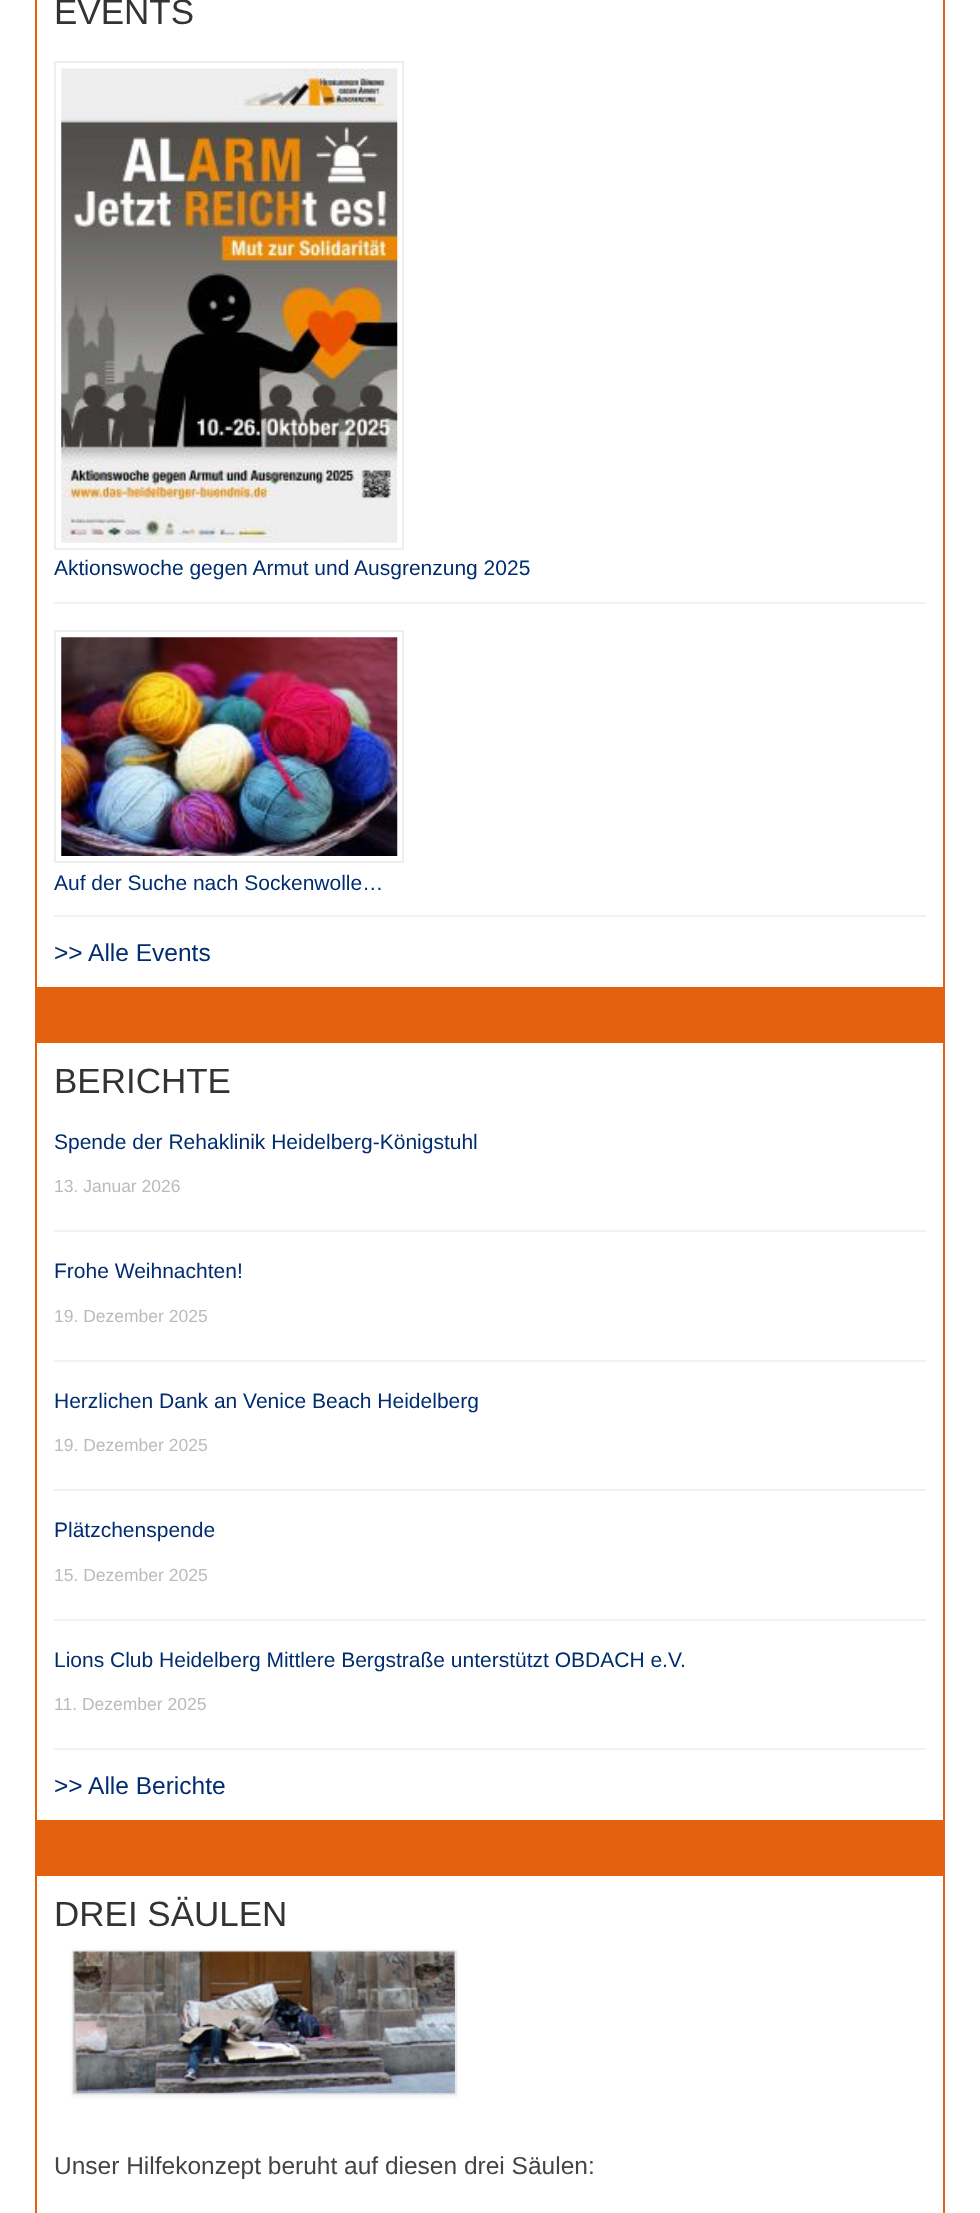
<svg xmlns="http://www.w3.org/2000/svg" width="980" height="2213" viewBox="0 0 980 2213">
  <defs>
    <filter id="blur1" x="-50%" y="-200%" width="200%" height="500%"><feGaussianBlur stdDeviation="2.5"/></filter>
  </defs>
  <rect width="100%" height="100%" fill="#ffffff"/>
  <rect x="35" y="989" width="910" height="885" fill="#e46110"/>
  <rect x="36" y="-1" width="908" height="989" fill="none" stroke="#e46110" stroke-width="2"/>
  <text x="54" y="24" font-family="Liberation Sans" font-size="35" fill="#333333">EVENTS</text>
  <rect x="54" y="602" width="872" height="2" fill="#f2f2f2"/>
  <rect x="55" y="62" width="348" height="487" fill="none" stroke="#eeeeee" stroke-width="2"/>
  <image x="61" y="68" width="337" height="475" href="img1.png"/>
  <text x="54" y="575" font-family="Liberation Sans" font-size="21" fill="#002c70">Aktionswoche gegen Armut und Ausgrenzung 2025</text>
  <rect x="54" y="915" width="872" height="2" fill="#f2f2f2"/>
  <rect x="55" y="631" width="348" height="231" fill="none" stroke="#eeeeee" stroke-width="2"/>
  <image x="61" y="637" width="337" height="219" href="img2.png"/>
  <text x="54" y="890" font-family="Liberation Sans" font-size="21" fill="#002c70">Auf der Suche nach Sockenwolle…</text>
  <text x="54" y="961" font-family="Liberation Sans" font-size="24.5" fill="#002c70">&gt;&gt; Alle Events</text>
  <rect x="37" y="1043" width="906" height="777" fill="#ffffff"/>
  <text x="54" y="1093" font-family="Liberation Sans" font-size="35" fill="#333333">BERICHTE</text>
  <rect x="54" y="1230" width="872" height="2" fill="#f2f2f2"/>
  <text x="54" y="1149" font-family="Liberation Sans" font-size="21" fill="#002c70">Spende der Rehaklinik Heidelberg-Königstuhl</text>
  <text x="54" y="1192" font-family="Liberation Sans" font-size="17.5" fill="#bbbbbb">13. Januar 2026</text>
  <rect x="54" y="1360" width="872" height="2" fill="#f2f2f2"/>
  <text x="54" y="1278" font-family="Liberation Sans" font-size="21" fill="#002c70">Frohe Weihnachten!</text>
  <text x="54" y="1322" font-family="Liberation Sans" font-size="17.5" fill="#bbbbbb">19. Dezember 2025</text>
  <rect x="54" y="1489" width="872" height="2" fill="#f2f2f2"/>
  <text x="54" y="1408" font-family="Liberation Sans" font-size="21" fill="#002c70">Herzlichen Dank an Venice Beach Heidelberg</text>
  <text x="54" y="1451" font-family="Liberation Sans" font-size="17.5" fill="#bbbbbb">19. Dezember 2025</text>
  <rect x="54" y="1619" width="872" height="2" fill="#f2f2f2"/>
  <text x="54" y="1537" font-family="Liberation Sans" font-size="21" fill="#002c70">Plätzchenspende</text>
  <text x="54" y="1581" font-family="Liberation Sans" font-size="17.5" fill="#bbbbbb">15. Dezember 2025</text>
  <rect x="54" y="1748" width="872" height="2" fill="#f2f2f2"/>
  <text x="54" y="1667" font-family="Liberation Sans" font-size="21" fill="#002c70">Lions Club Heidelberg Mittlere Bergstraße unterstützt OBDACH e.V.</text>
  <text x="54" y="1710" font-family="Liberation Sans" font-size="17.5" fill="#bbbbbb">11. Dezember 2025</text>
  <text x="54" y="1794" font-family="Liberation Sans" font-size="24.5" fill="#002c70">&gt;&gt; Alle Berichte</text>
  <rect x="36" y="1875" width="908" height="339" fill="none" stroke="#e46110" stroke-width="2"/>
  <text x="54" y="1926" font-family="Liberation Sans" font-size="35" fill="#333333">DREI SÄULEN</text>
  <rect x="72" y="1951" width="385" height="146" fill="#000000" fill-opacity="0.06" filter="url(#blur1)"/>
  <rect x="73" y="1951" width="383" height="143" fill="none" stroke="#000000" stroke-opacity="0.05" stroke-width="2"/>
  <image x="73" y="1951" width="382" height="143" href="img3.png"/>
  <text x="54" y="2174" font-family="Liberation Sans" font-size="24.5" fill="#444444">Unser Hilfekonzept beruht auf diesen drei Säulen:</text>
</svg>
